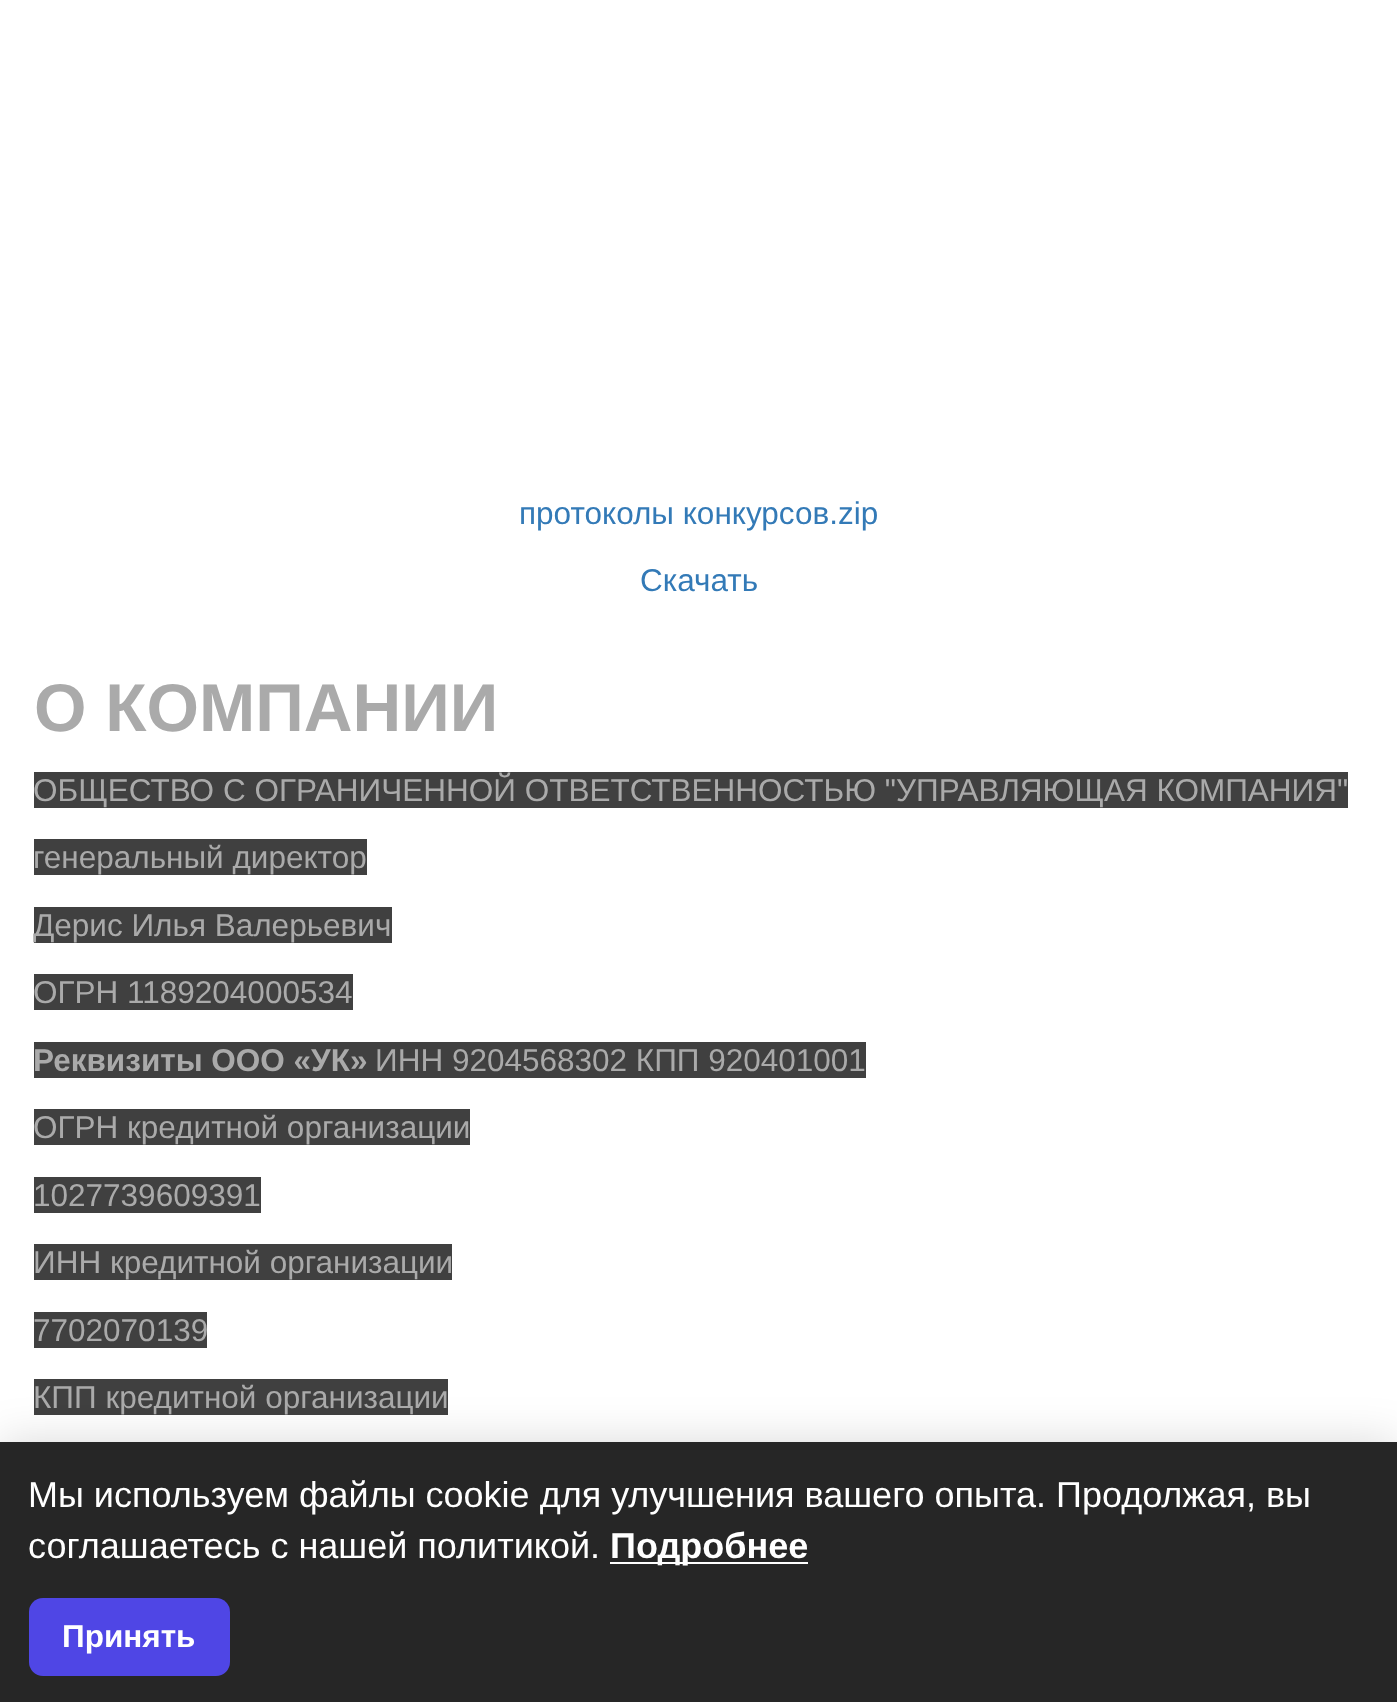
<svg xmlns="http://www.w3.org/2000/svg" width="1397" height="1702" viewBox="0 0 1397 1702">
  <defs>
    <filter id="blur1" x="-50%" y="-200%" width="200%" height="500%"><feGaussianBlur stdDeviation="22.5"/></filter>
  </defs>
  <rect width="100%" height="100%" fill="#ffffff"/>
  <text x="519" y="524" font-family="Liberation Sans" font-size="31.5" fill="#337ab7">протоколы конкурсов.zip</text>
  <text x="640" y="591" font-family="Liberation Sans" font-size="31.5" fill="#337ab7">Скачать</text>
  <text x="34" y="731" font-family="Liberation Sans" font-size="67.5" font-weight="bold" fill="#aaaaaa">О КОМПАНИИ</text>
  <rect x="34" y="772" width="1314" height="36" fill="#404040"/>
  <text x="33" y="801" font-family="Liberation Sans" font-size="31.5" fill="#aaaaaa">ОБЩЕСТВО С ОГРАНИЧЕННОЙ ОТВЕТСТВЕННОСТЬЮ "УПРАВЛЯЮЩАЯ КОМПАНИЯ"</text>
  <rect x="34" y="839" width="333" height="36" fill="#404040"/>
  <text x="33" y="868" font-family="Liberation Sans" font-size="31.5" fill="#aaaaaa">генеральный директор</text>
  <rect x="34" y="907" width="358" height="36" fill="#404040"/>
  <text x="33" y="936" font-family="Liberation Sans" font-size="31.5" fill="#aaaaaa">Дерис Илья Валерьевич</text>
  <rect x="34" y="974" width="319" height="36" fill="#404040"/>
  <text x="33" y="1003" font-family="Liberation Sans" font-size="31.5" fill="#aaaaaa">ОГРН 1189204000534</text>
  <rect x="34" y="1042" width="832" height="36" fill="#404040"/>
  <text x="33" y="1071" font-family="Liberation Sans" font-size="31.5" font-weight="bold" fill="#aaaaaa">Реквизиты ООО «УК»</text>
  <text x="375" y="1071" font-family="Liberation Sans" font-size="31.5" fill="#aaaaaa">ИНН 9204568302 КПП 920401001</text>
  <rect x="34" y="1109" width="436" height="36" fill="#404040"/>
  <text x="33" y="1138" font-family="Liberation Sans" font-size="31.5" fill="#aaaaaa">ОГРН кредитной организации</text>
  <rect x="34" y="1177" width="227" height="36" fill="#404040"/>
  <text x="33" y="1206" font-family="Liberation Sans" font-size="31.5" fill="#aaaaaa">1027739609391</text>
  <rect x="34" y="1244" width="418" height="36" fill="#404040"/>
  <text x="33" y="1273" font-family="Liberation Sans" font-size="31.5" fill="#aaaaaa">ИНН кредитной организации</text>
  <rect x="34" y="1312" width="173" height="36" fill="#404040"/>
  <text x="33" y="1341" font-family="Liberation Sans" font-size="31.5" fill="#aaaaaa">7702070139</text>
  <rect x="34" y="1379" width="414" height="36" fill="#404040"/>
  <text x="33" y="1408" font-family="Liberation Sans" font-size="31.5" fill="#aaaaaa">КПП кредитной организации</text>
  <rect x="0" y="1442" width="1397" height="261" fill="#000000" fill-opacity="0.15" filter="url(#blur1)"/>
  <rect x="0" y="1442" width="1397" height="260" fill="#262626"/>
  <text x="28" y="1507" font-family="Liberation Sans" font-size="36" fill="#ffffff">Мы используем файлы cookie для улучшения вашего опыта. Продолжая, вы</text>
  <text x="28" y="1558" font-family="Liberation Sans" font-size="36" fill="#ffffff">соглашаетесь с нашей политикой.</text>
  <rect x="610" y="1562" width="198" height="2" fill="#ffffff"/>
  <text x="610" y="1558" font-family="Liberation Sans" font-size="36" font-weight="bold" fill="#ffffff">Подробнее</text>
  <rect x="29" y="1598" width="201" height="78" rx="14" fill="#4f46e5"/>
  <text x="62" y="1647" font-family="Liberation Sans" font-size="31.5" font-weight="bold" fill="#ffffff">Принять</text>
</svg>
